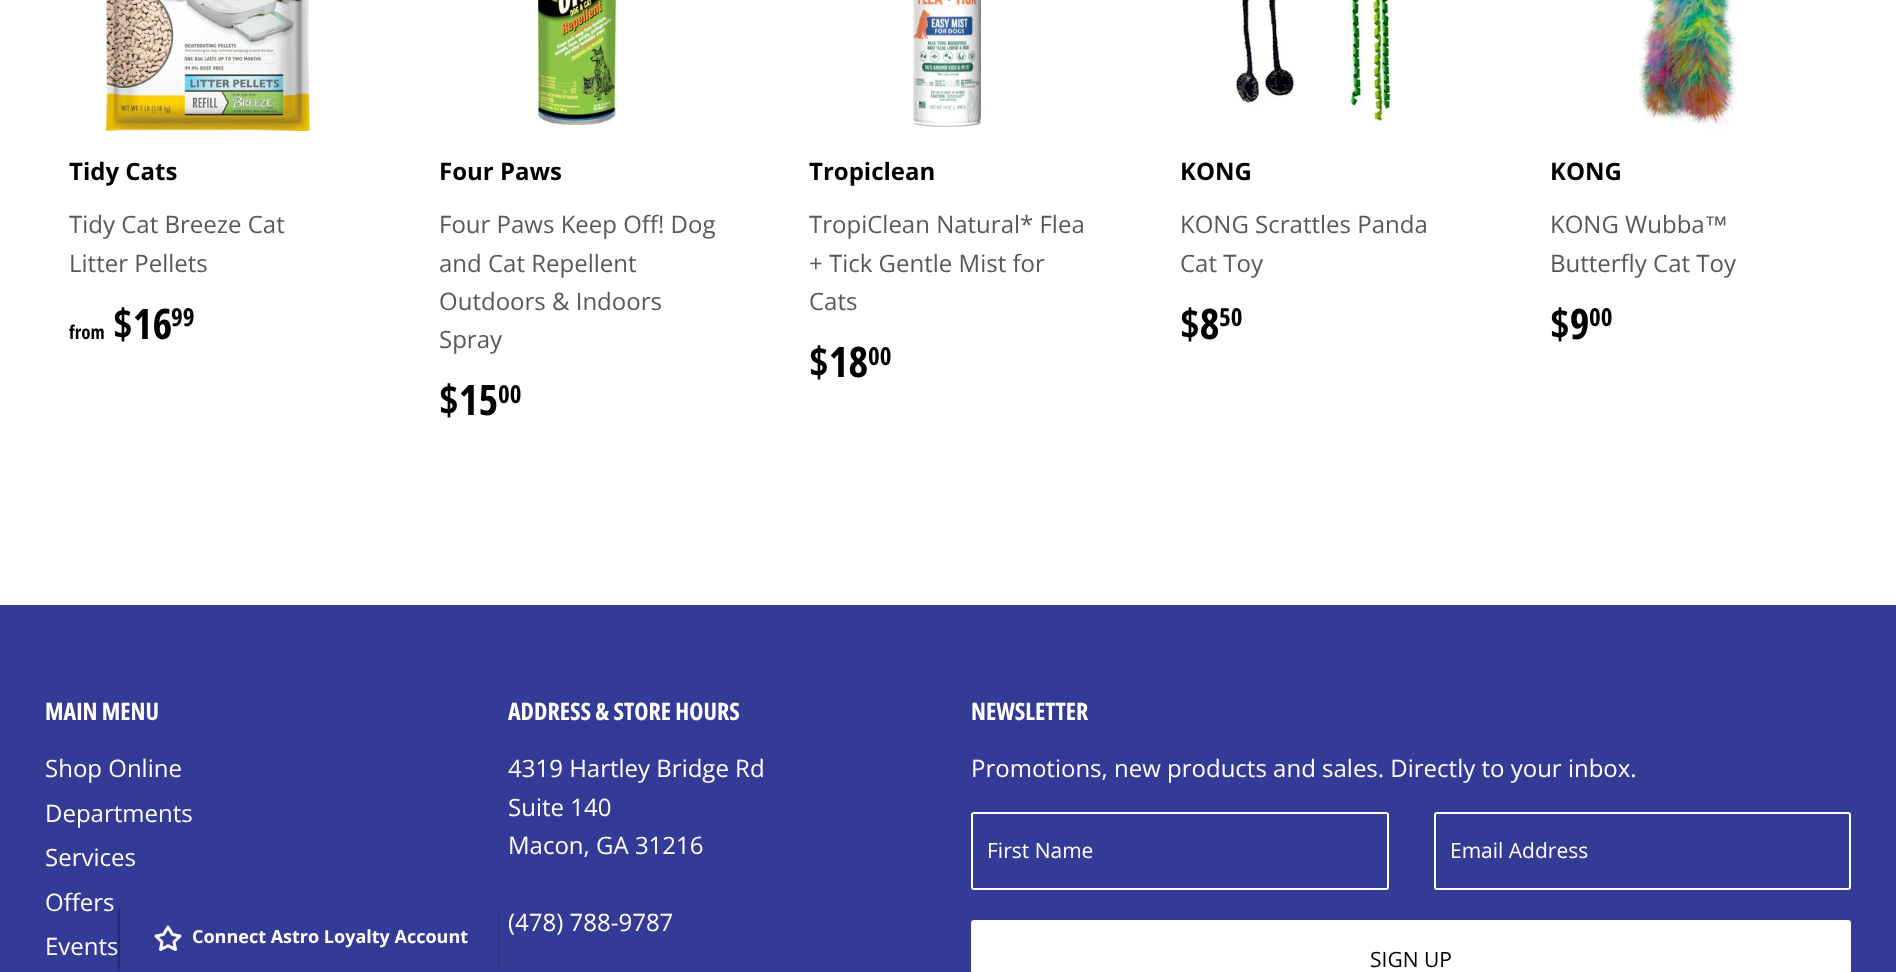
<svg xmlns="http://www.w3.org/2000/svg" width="1896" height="972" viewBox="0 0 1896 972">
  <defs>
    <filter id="blur1" x="-50%" y="-200%" width="200%" height="500%"><feGaussianBlur stdDeviation="2"/></filter>
  </defs>
  <rect width="100%" height="100%" fill="#ffffff"/>
  <image x="105" y="0" width="208" height="131" href="img1.png"/>
  <text x="69" y="180" font-family="Open Sans" font-size="24" font-weight="bold" fill="#000000">Tidy Cats</text>
  <text x="69" y="233" font-family="Open Sans" font-size="24" fill="#585858">Tidy Cat Breeze Cat</text>
  <text x="69" y="272" font-family="Open Sans" font-size="24" fill="#585858">Litter Pellets</text>
  <text x="113" y="339" font-family="Open Sans Condensed" font-size="42" font-weight="bold" fill="#000000">$16</text>
  <text x="171" y="326" font-family="Open Sans Condensed" font-size="25" font-weight="bold" fill="#000000">99</text>
  <text x="69" y="339" font-family="Open Sans Condensed" font-size="19" font-weight="bold" fill="#000000">from</text>
  <image x="537" y="0" width="80" height="126" href="img2.png"/>
  <text x="439" y="180" font-family="Open Sans" font-size="24" font-weight="bold" fill="#000000">Four Paws</text>
  <text x="439" y="233" font-family="Open Sans" font-size="24" fill="#585858">Four Paws Keep Off! Dog</text>
  <text x="439" y="272" font-family="Open Sans" font-size="24" fill="#585858">and Cat Repellent</text>
  <text x="439" y="310" font-family="Open Sans" font-size="24" fill="#585858">Outdoors &amp; Indoors</text>
  <text x="439" y="348" font-family="Open Sans" font-size="24" fill="#585858">Spray</text>
  <text x="439" y="415" font-family="Open Sans Condensed" font-size="42" font-weight="bold" fill="#000000">$15</text>
  <text x="498" y="403" font-family="Open Sans Condensed" font-size="25" font-weight="bold" fill="#000000">00</text>
  <image x="913" y="0" width="68" height="127" href="img3.png"/>
  <text x="809" y="180" font-family="Open Sans" font-size="24" font-weight="bold" fill="#000000">Tropiclean</text>
  <text x="809" y="233" font-family="Open Sans" font-size="24" fill="#585858">TropiClean Natural* Flea</text>
  <text x="809" y="272" font-family="Open Sans" font-size="24" fill="#585858">+ Tick Gentle Mist for</text>
  <text x="809" y="310" font-family="Open Sans" font-size="24" fill="#585858">Cats</text>
  <text x="809" y="377" font-family="Open Sans Condensed" font-size="42" font-weight="bold" fill="#000000">$18</text>
  <text x="868" y="365" font-family="Open Sans Condensed" font-size="25" font-weight="bold" fill="#000000">00</text>
  <image x="1234" y="0" width="159" height="125" href="img4.png"/>
  <text x="1180" y="180" font-family="Open Sans" font-size="24" font-weight="bold" fill="#000000">KONG</text>
  <text x="1180" y="233" font-family="Open Sans" font-size="24" fill="#585858">KONG Scrattles Panda</text>
  <text x="1180" y="272" font-family="Open Sans" font-size="24" fill="#585858">Cat Toy</text>
  <text x="1180" y="339" font-family="Open Sans Condensed" font-size="42" font-weight="bold" fill="#000000">$8</text>
  <text x="1219" y="326" font-family="Open Sans Condensed" font-size="25" font-weight="bold" fill="#000000">50</text>
  <image x="1638" y="0" width="99" height="131" href="img5.png"/>
  <text x="1550" y="180" font-family="Open Sans" font-size="24" font-weight="bold" fill="#000000">KONG</text>
  <text x="1550" y="233" font-family="Open Sans" font-size="24" fill="#585858">KONG Wubba</text>
  <text x="1704" y="233" font-family="Liberation Sans" font-size="24" fill="#585858">™</text>
  <text x="1550" y="272" font-family="Open Sans" font-size="24" fill="#585858">Butterfly Cat Toy</text>
  <text x="1550" y="339" font-family="Open Sans Condensed" font-size="42" font-weight="bold" fill="#000000">$9</text>
  <text x="1589" y="326" font-family="Open Sans Condensed" font-size="25" font-weight="bold" fill="#000000">00</text>
  <rect x="0" y="605" width="1896" height="367" fill="#333b97"/>
  <text x="45" y="720" font-family="Open Sans Condensed" font-size="24" font-weight="bold" fill="#ffffff">MAIN MENU</text>
  <text x="45" y="777" font-family="Open Sans" font-size="24" fill="#ffffff">Shop Online</text>
  <text x="45" y="822" font-family="Open Sans" font-size="24" fill="#ffffff">Departments</text>
  <text x="45" y="866" font-family="Open Sans" font-size="24" fill="#ffffff">Services</text>
  <text x="45" y="911" font-family="Open Sans" font-size="24" fill="#ffffff">Offers</text>
  <text x="45" y="955" font-family="Open Sans" font-size="24" fill="#ffffff">Events</text>
  <text x="508" y="720" font-family="Open Sans Condensed" font-size="24" font-weight="bold" fill="#ffffff">ADDRESS &amp; STORE HOURS</text>
  <text x="508" y="777" font-family="Open Sans" font-size="24" fill="#ffffff">4319 Hartley Bridge Rd</text>
  <text x="508" y="816" font-family="Open Sans" font-size="24" fill="#ffffff">Suite 140</text>
  <text x="508" y="854" font-family="Open Sans" font-size="24" fill="#ffffff">Macon, GA 31216</text>
  <text x="508" y="931" font-family="Open Sans" font-size="24" fill="#ffffff">(478) 788-9787</text>
  <text x="971" y="720" font-family="Open Sans Condensed" font-size="24" font-weight="bold" fill="#ffffff">NEWSLETTER</text>
  <text x="971" y="777" font-family="Open Sans" font-size="24" fill="#ffffff">Promotions, new products and sales. Directly to your inbox.</text>
  <rect x="972" y="813" width="416" height="76" rx="2" fill="none" stroke="#ffffff" stroke-width="2"/>
  <text x="987" y="858" font-family="Open Sans" font-size="21" fill="#ffffff">First Name</text>
  <rect x="1435" y="813" width="415" height="76" rx="2" fill="none" stroke="#ffffff" stroke-width="2"/>
  <text x="1450" y="858" font-family="Open Sans" font-size="21" fill="#ffffff">Email Address</text>
  <rect x="971" y="920" width="880" height="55" rx="3" fill="#ffffff"/>
  <text x="1370" y="967" font-family="Open Sans" font-size="21" fill="#000000">SIGN UP</text>
  <rect x="119" y="905" width="378" height="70" rx="8" fill="#000000" fill-opacity="0.5" filter="url(#blur1)"/>
  <path d="M128 902H490C494.5 902 498 905.5 498 910V972H120V910C120 905.5 123.5 902 128 902Z" fill="#333b97"/>
  <image x="154" y="925" width="28" height="26" href="img6.png"/>
  <text x="192" y="943" font-family="Open Sans" font-size="18" font-weight="bold" fill="#ffffff">Connect Astro Loyalty Account</text>
</svg>
